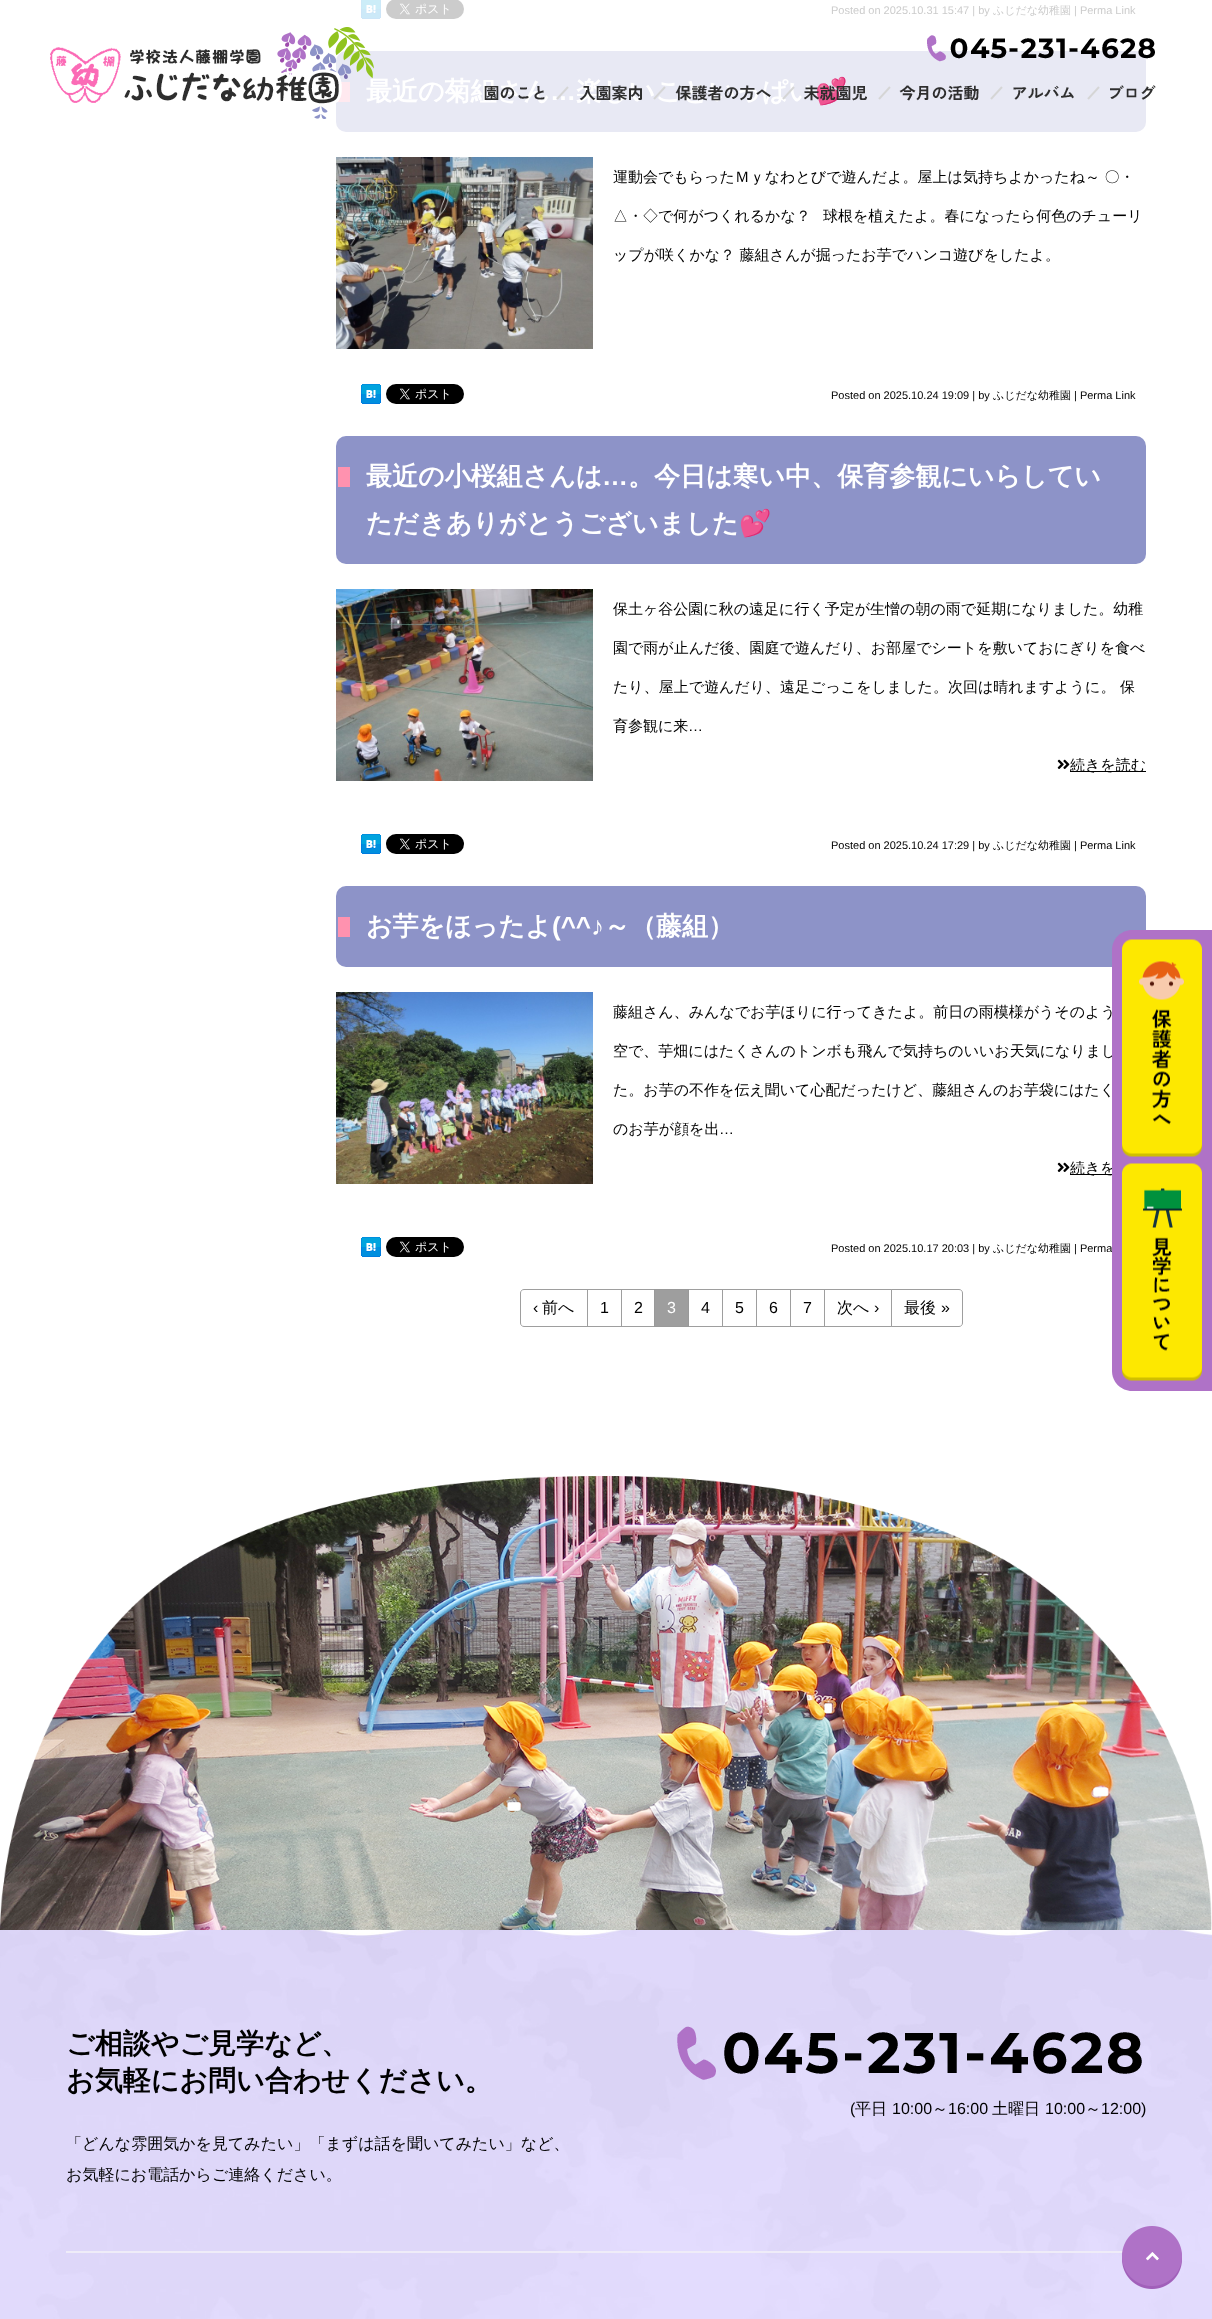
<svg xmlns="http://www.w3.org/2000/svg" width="1212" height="2319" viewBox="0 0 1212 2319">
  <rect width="100%" height="100%" fill="#ffffff"/>
  <image x="361" y="0" width="20" height="19" href="img1.png"/>
  <image x="386" y="0" width="78" height="19" href="img2.png"/>
  <text x="831" y="14" font-family="Liberation Sans" font-size="11" fill="#cccccc">Posted on 2025.10.31 15:47 | by</text>
  <text x="993" y="14" font-family="WenQuanYi Zen Hei" font-size="11" font-weight="500" fill="#cccccc">ふじだな幼稚園</text>
  <text x="1074" y="14" font-family="Liberation Sans" font-size="11" fill="#cccccc">| Perma Link</text>
  <rect x="336" y="51" width="810" height="81" rx="10" fill="#e8e9f4"/>
  <rect x="338" y="82" width="12" height="20" fill="#ffe9ef"/>
  <text x="366" y="100" font-family="WenQuanYi Zen Hei" font-size="26" font-weight="bold" fill="#ffffff">最近の菊組さん</text>
  <text x="550" y="100" font-family="Liberation Sans" font-size="26" font-weight="bold" fill="#ffffff">…</text>
  <text x="576" y="100" font-family="WenQuanYi Zen Hei" font-size="26" font-weight="bold" fill="#ffffff">楽しいこといっぱい</text>
  <text x="815" y="100" font-family="Noto Color Emoji" font-size="26" font-weight="bold" fill="#ffffff">💕</text>
  <image x="336" y="157" width="257" height="192" href="img3.png"/>
  <text x="613" y="182" font-family="WenQuanYi Zen Hei" font-size="15" font-weight="500" fill="#000000">運動会でもらったＭｙなわとびで遊んだよ。屋上は気持ちよかったね～ 〇・</text>
  <text x="613" y="221" font-family="WenQuanYi Zen Hei" font-size="15" font-weight="500" fill="#000000">△・◇で何がつくれるかな？</text>
  <text x="823" y="221" font-family="WenQuanYi Zen Hei" font-size="15" font-weight="500" fill="#000000">球根を植えたよ。春になったら何色のチューリ</text>
  <text x="613" y="260" font-family="WenQuanYi Zen Hei" font-size="15" font-weight="500" fill="#000000">ップが咲くかな？ 藤組さんが掘ったお芋でハンコ遊びをしたよ。</text>
  <image x="361" y="384" width="20" height="20" href="img4.png"/>
  <image x="386" y="384" width="78" height="20" href="img5.png"/>
  <text x="831" y="399" font-family="Liberation Sans" font-size="11" fill="#000000">Posted on 2025.10.24 19:09 | by</text>
  <text x="993" y="399" font-family="WenQuanYi Zen Hei" font-size="11" font-weight="500" fill="#000000">ふじだな幼稚園</text>
  <text x="1074" y="399" font-family="Liberation Sans" font-size="11" fill="#000000">| Perma Link</text>
  <rect x="336" y="436" width="810" height="128" rx="10" fill="#8d93c8"/>
  <rect x="338" y="467" width="12" height="20" fill="#ff92af"/>
  <text x="366" y="485" font-family="WenQuanYi Zen Hei" font-size="26" font-weight="bold" fill="#ffffff">最近の小桜組さんは</text>
  <text x="602" y="485" font-family="Liberation Sans" font-size="26" font-weight="bold" fill="#ffffff">…</text>
  <text x="628" y="485" font-family="WenQuanYi Zen Hei" font-size="26" font-weight="bold" fill="#ffffff">。今日は寒い中、保育参観にいらしてい</text>
  <text x="366" y="532" font-family="WenQuanYi Zen Hei" font-size="26" font-weight="bold" fill="#ffffff">ただきありがとうございました</text>
  <text x="739" y="532" font-family="Noto Color Emoji" font-size="26" font-weight="bold" fill="#ffffff">💕</text>
  <image x="336" y="589" width="257" height="192" href="img6.png"/>
  <text x="613" y="614" font-family="WenQuanYi Zen Hei" font-size="15" font-weight="500" fill="#000000">保土ヶ谷公園に秋の遠足に行く予定が生憎の朝の雨で延期になりました。幼稚</text>
  <text x="613" y="653" font-family="WenQuanYi Zen Hei" font-size="15" font-weight="500" fill="#000000">園で雨が止んだ後、園庭で遊んだり、お部屋でシートを敷いておにぎりを食べ</text>
  <text x="613" y="692" font-family="WenQuanYi Zen Hei" font-size="15" font-weight="500" fill="#000000">たり、屋上で遊んだり、遠足ごっこをしました。次回は晴れますように。 保</text>
  <text x="613" y="731" font-family="WenQuanYi Zen Hei" font-size="15" font-weight="500" fill="#000000">育参観に来</text>
  <text x="688" y="731" font-family="Liberation Sans" font-size="15" fill="#000000">…</text>
  <image x="1057" y="759" width="13" height="10" href="img7.png"/>
  <rect x="1070" y="771" width="76" height="1" fill="#000000"/>
  <text x="1070" y="770" font-family="WenQuanYi Zen Hei" font-size="15" font-weight="500" fill="#000000">続きを読む</text>
  <image x="361" y="834" width="20" height="20" href="img4.png"/>
  <image x="386" y="834" width="78" height="20" href="img8.png"/>
  <text x="831" y="849" font-family="Liberation Sans" font-size="11" fill="#000000">Posted on 2025.10.24 17:29 | by</text>
  <text x="993" y="849" font-family="WenQuanYi Zen Hei" font-size="11" font-weight="500" fill="#000000">ふじだな幼稚園</text>
  <text x="1074" y="849" font-family="Liberation Sans" font-size="11" fill="#000000">| Perma Link</text>
  <rect x="336" y="886" width="810" height="81" rx="10" fill="#8d93c8"/>
  <rect x="338" y="917" width="12" height="20" fill="#ff92af"/>
  <text x="366" y="935" font-family="WenQuanYi Zen Hei" font-size="26" font-weight="bold" fill="#ffffff">お芋をほったよ</text>
  <text x="552" y="935" font-family="Liberation Sans" font-size="26" font-weight="bold" fill="#ffffff">(^^♪</text>
  <text x="604" y="935" font-family="WenQuanYi Zen Hei" font-size="26" font-weight="bold" fill="#ffffff">～（藤組）</text>
  <image x="336" y="992" width="257" height="192" href="img9.png"/>
  <text x="613" y="1017" font-family="WenQuanYi Zen Hei" font-size="15" font-weight="500" fill="#000000">藤組さん、みんなでお芋ほりに行ってきたよ。前日の雨模様がうそのよう</text>
  <text x="613" y="1056" font-family="WenQuanYi Zen Hei" font-size="15" font-weight="500" fill="#000000">空で、芋畑にはたくさんのトンボも飛んで気持ちのいいお天気になりまし</text>
  <text x="613" y="1095" font-family="WenQuanYi Zen Hei" font-size="15" font-weight="500" fill="#000000">た。お芋の不作を伝え聞いて心配だったけど、藤組さんのお芋袋にはたく</text>
  <text x="613" y="1134" font-family="WenQuanYi Zen Hei" font-size="15" font-weight="500" fill="#000000">のお芋が顔を出</text>
  <text x="719" y="1134" font-family="Liberation Sans" font-size="15" fill="#000000">…</text>
  <image x="1057" y="1162" width="13" height="10" href="img7.png"/>
  <rect x="1070" y="1174" width="42" height="1" fill="#000000"/>
  <text x="1070" y="1173" font-family="WenQuanYi Zen Hei" font-size="15" font-weight="500" fill="#000000">続きを</text>
  <image x="361" y="1237" width="20" height="20" href="img4.png"/>
  <image x="386" y="1237" width="78" height="20" href="img5.png"/>
  <text x="831" y="1252" font-family="Liberation Sans" font-size="11" fill="#000000">Posted on 2025.10.17 20:03 | by</text>
  <text x="993" y="1252" font-family="WenQuanYi Zen Hei" font-size="11" font-weight="500" fill="#000000">ふじだな幼稚園</text>
  <text x="1074" y="1252" font-family="Liberation Sans" font-size="11" fill="#000000">| Perma</text>
  <path d="M524 1289.5H587.5V1326.5H524C522 1326.5 520.5 1325 520.5 1323V1293C520.5 1291 522 1289.5 524 1289.5Z" fill="none" stroke="#9e9e9e"/>
  <text x="533" y="1313" font-family="Liberation Sans" font-size="16" fill="#000000">‹</text>
  <text x="542" y="1313" font-family="WenQuanYi Zen Hei" font-size="16" font-weight="500" fill="#000000">前へ</text>
  <rect x="587.5" y="1289.5" width="34" height="37" fill="none" stroke="#9e9e9e"/>
  <text x="600" y="1313" font-family="Liberation Sans" font-size="16" fill="#000000">1</text>
  <rect x="621.5" y="1289.5" width="33" height="37" fill="none" stroke="#9e9e9e"/>
  <text x="634" y="1313" font-family="Liberation Sans" font-size="16" fill="#000000">2</text>
  <rect x="688.5" y="1289.5" width="34" height="37" fill="none" stroke="#9e9e9e"/>
  <rect x="654.5" y="1289.5" width="34" height="37" fill="#9e9e9e" stroke="#999999"/>
  <text x="667" y="1313" font-family="Liberation Sans" font-size="16" fill="#ffffff">3</text>
  <text x="701" y="1313" font-family="Liberation Sans" font-size="16" fill="#000000">4</text>
  <rect x="722.5" y="1289.5" width="34" height="37" fill="none" stroke="#9e9e9e"/>
  <text x="735" y="1313" font-family="Liberation Sans" font-size="16" fill="#000000">5</text>
  <rect x="756.5" y="1289.5" width="34" height="37" fill="none" stroke="#9e9e9e"/>
  <text x="769" y="1313" font-family="Liberation Sans" font-size="16" fill="#000000">6</text>
  <rect x="790.5" y="1289.5" width="34" height="37" fill="none" stroke="#9e9e9e"/>
  <text x="803" y="1313" font-family="Liberation Sans" font-size="16" fill="#000000">7</text>
  <rect x="824.5" y="1289.5" width="67" height="37" fill="none" stroke="#9e9e9e"/>
  <text x="837" y="1313" font-family="WenQuanYi Zen Hei" font-size="16" font-weight="500" fill="#000000">次へ</text>
  <text x="874" y="1313" font-family="Liberation Sans" font-size="16" fill="#000000">›</text>
  <path d="M891.5 1289.5H959C961 1289.5 962.5 1291 962.5 1293V1323C962.5 1325 961 1326.5 959 1326.5H891.5Z" fill="#ffffff" stroke="#9e9e9e"/>
  <text x="904" y="1313" font-family="WenQuanYi Zen Hei" font-size="16" font-weight="500" fill="#000000">最後</text>
  <text x="941" y="1313" font-family="Liberation Sans" font-size="16" fill="#000000">»</text>
  <image x="50" y="27" width="324" height="92" href="img10.png"/>
  <image x="927" y="35" width="228" height="27" href="img11.png"/>
  <image x="484" y="86" width="85" height="14" href="img12.png"/>
  <image x="579" y="85" width="87" height="16" href="img13.png"/>
  <image x="675" y="85" width="120" height="16" href="img14.png"/>
  <image x="804" y="85" width="87" height="16" href="img15.png"/>
  <image x="899" y="85" width="104" height="16" href="img16.png"/>
  <image x="1013" y="85" width="87" height="15" href="img17.png"/>
  <image x="1110" y="85" width="46" height="15" href="img18.png"/>
  <path d="M1132 930H1212V1391H1132C1121 1391 1112 1382 1112 1371V950C1112 939 1121 930 1132 930Z" fill="#af72c7"/>
  <image x="1122" y="939" width="80" height="218" href="img19.png"/>
  <image x="1122" y="1163" width="80" height="218" href="img20.png"/>
  <image x="0" y="1917" width="1212" height="402" href="img21.png"/>
  <image x="0" y="1476" width="1212" height="454" href="img22.png"/>
  <text x="66" y="2053" font-family="WenQuanYi Zen Hei" font-size="28" font-weight="bold" fill="#000000">ご相談やご見学など、</text>
  <text x="66" y="2090" font-family="WenQuanYi Zen Hei" font-size="28" font-weight="bold" fill="#000000">お気軽にお問い合わせください。</text>
  <text x="66" y="2149" font-family="WenQuanYi Zen Hei" font-size="16" font-weight="500" fill="#000000">「どんな雰囲気かを見てみたい」「まずは話を聞いてみたい」など、</text>
  <text x="66" y="2180" font-family="WenQuanYi Zen Hei" font-size="16" font-weight="500" fill="#000000">お気軽にお電話からご連絡ください。</text>
  <image x="677" y="2026" width="465" height="54" href="img23.png"/>
  <text x="850" y="2114" font-family="Liberation Sans" font-size="16" fill="#000000">(</text>
  <text x="855" y="2114" font-family="WenQuanYi Zen Hei" font-size="16" font-weight="500" fill="#000000">平日</text>
  <text x="892" y="2114" font-family="Liberation Sans" font-size="16" fill="#000000">10:00</text>
  <text x="932" y="2114" font-family="WenQuanYi Zen Hei" font-size="16" font-weight="500" fill="#000000">～</text>
  <text x="948" y="2114" font-family="Liberation Sans" font-size="16" fill="#000000">16:00</text>
  <text x="992" y="2114" font-family="WenQuanYi Zen Hei" font-size="16" font-weight="500" fill="#000000">土曜日</text>
  <text x="1045" y="2114" font-family="Liberation Sans" font-size="16" fill="#000000">10:00</text>
  <text x="1085" y="2114" font-family="WenQuanYi Zen Hei" font-size="16" font-weight="500" fill="#000000">～</text>
  <text x="1101" y="2114" font-family="Liberation Sans" font-size="16" fill="#000000">12:00)</text>
  <rect x="66" y="2251" width="1057" height="2" fill="#efecf8"/>
  <image x="1122" y="2226" width="60" height="63" href="img24.png"/>
</svg>
